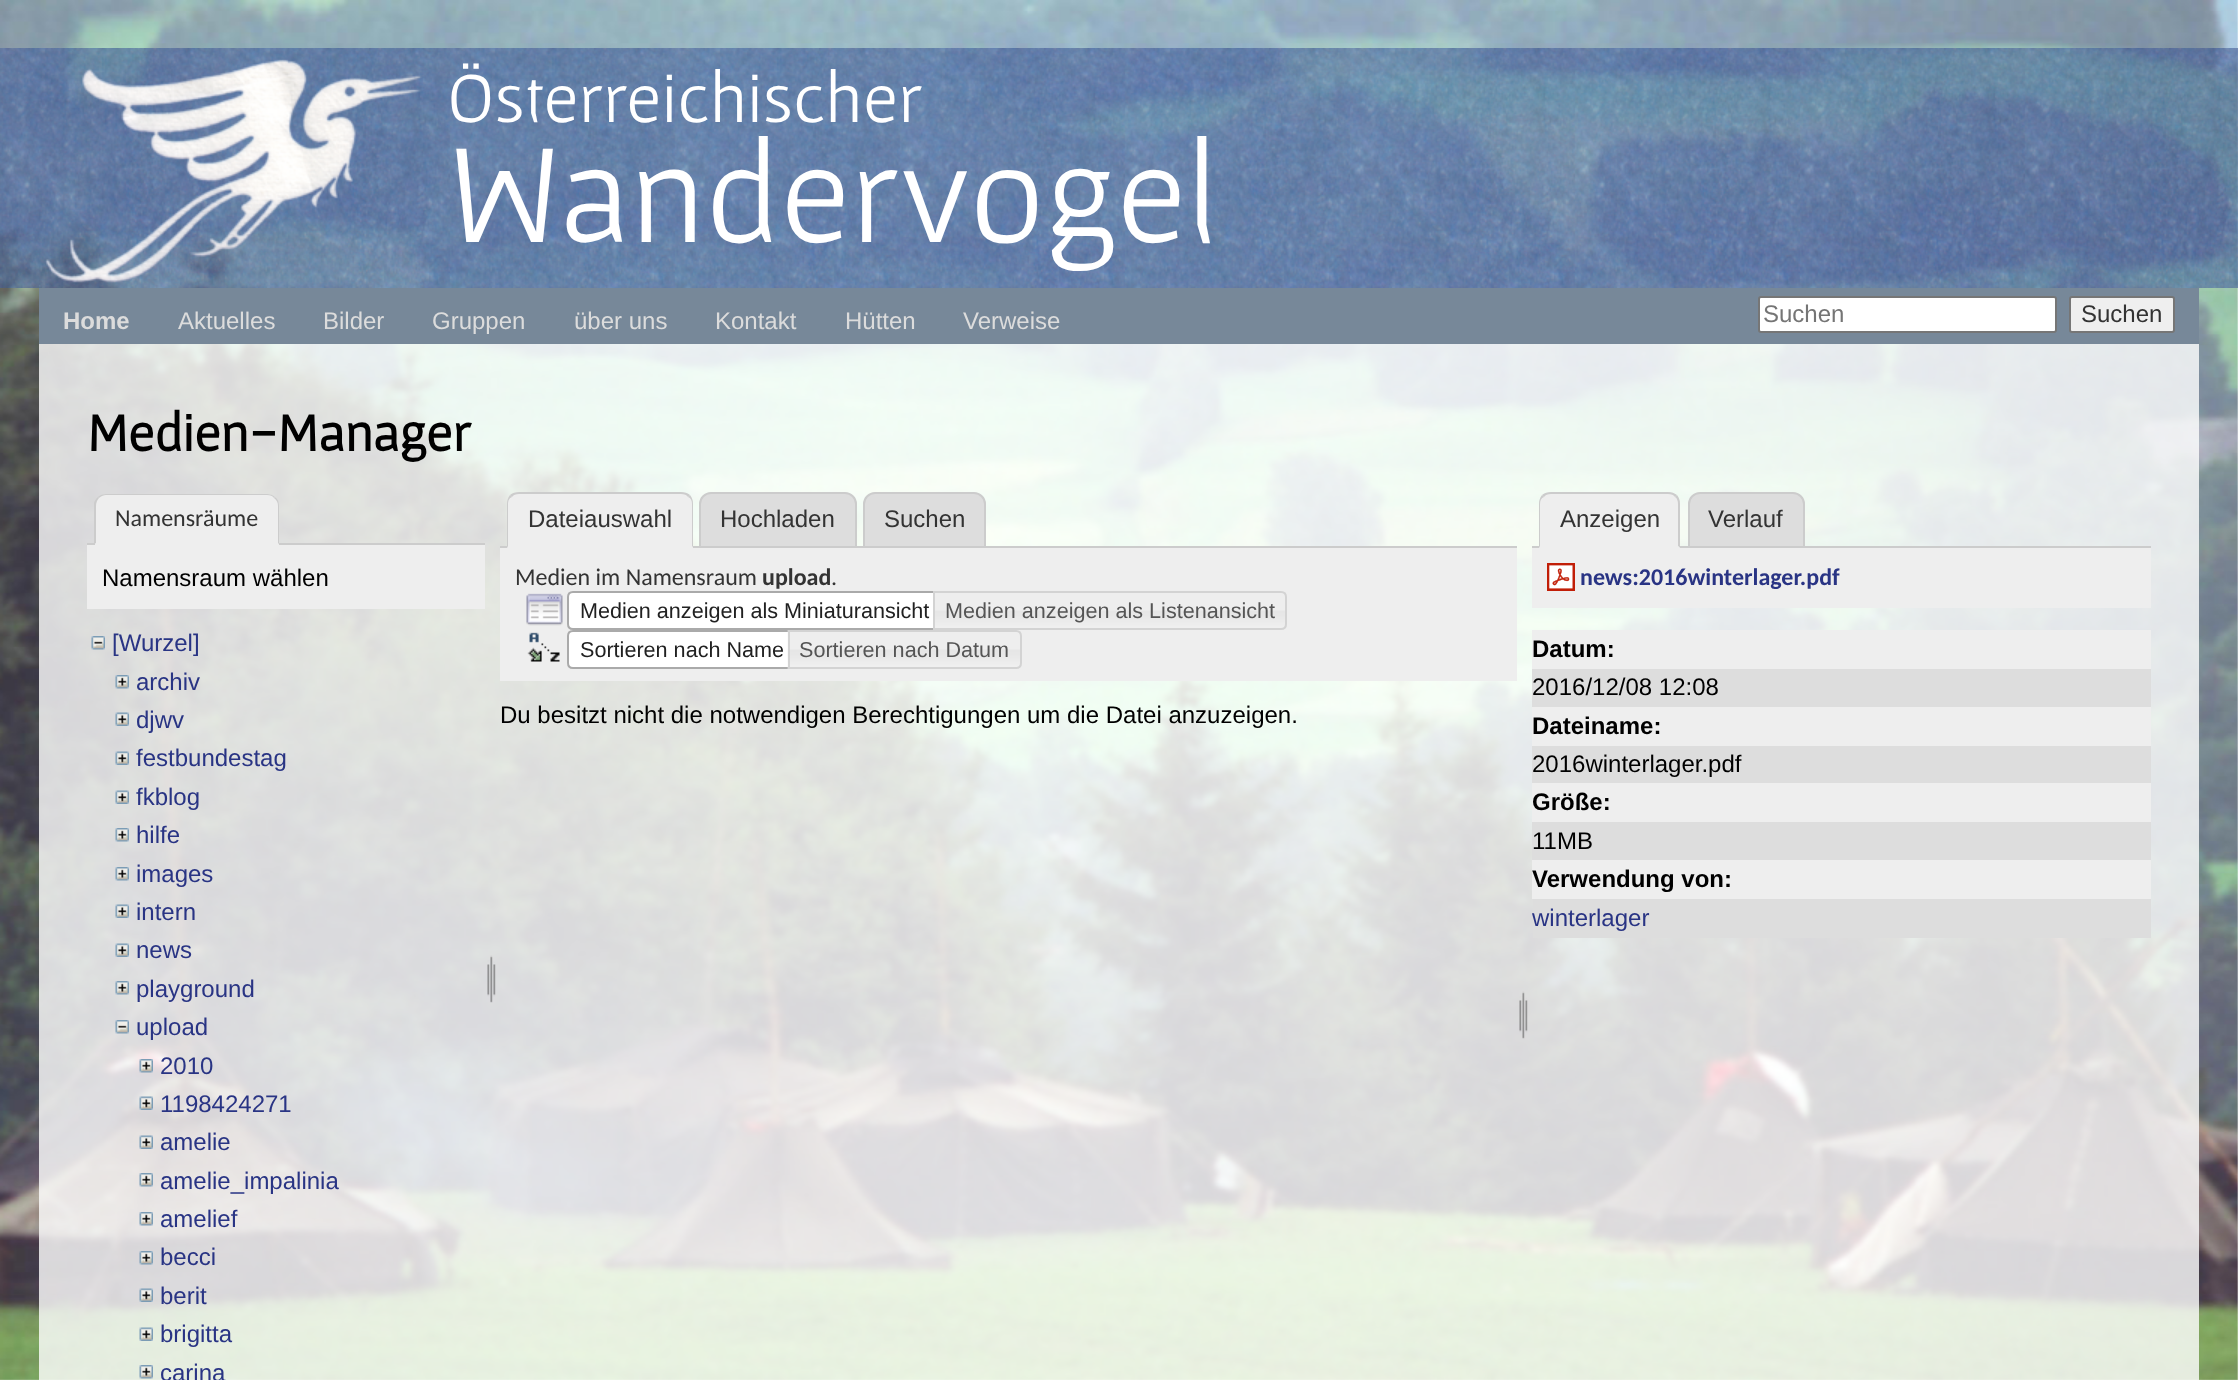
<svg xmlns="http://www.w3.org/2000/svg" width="2238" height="1380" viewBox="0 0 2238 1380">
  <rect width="100%" height="100%" fill="#ffffff"/>
  <image x="0" y="0" width="2238" height="1380" href="img1.png"/>
  <image x="0" y="48" width="2238" height="240" href="img2.png"/>
  <image x="39" y="59" width="388" height="228" href="img3.png"/>
  <text x="447" y="122" font-family="Gafata" font-size="72" fill="#ffffff">Österreichischer</text>
  <text x="447" y="242" font-family="Gafata" font-size="144" fill="#ffffff">Wandervogel</text>
  <rect x="39" y="288" width="2160" height="56" fill="#778899"/>
  <text x="63" y="329" font-family="Liberation Sans" font-size="24" font-weight="bold" fill="#dcdcdc">Home</text>
  <text x="178" y="329" font-family="Liberation Sans" font-size="24" fill="#dcdcdc">Aktuelles</text>
  <text x="323" y="329" font-family="Liberation Sans" font-size="24" fill="#dcdcdc">Bilder</text>
  <text x="432" y="329" font-family="Liberation Sans" font-size="24" fill="#dcdcdc">Gruppen</text>
  <text x="574" y="329" font-family="Liberation Sans" font-size="24" fill="#dcdcdc">über uns</text>
  <text x="715" y="329" font-family="Liberation Sans" font-size="24" fill="#dcdcdc">Kontakt</text>
  <text x="845" y="329" font-family="Liberation Sans" font-size="24" fill="#dcdcdc">Hütten</text>
  <text x="963" y="329" font-family="Liberation Sans" font-size="24" fill="#dcdcdc">Verweise</text>
  <rect x="39" y="344" width="2160" height="7" fill="#ffffff" fill-opacity="0.8"/>
  <rect x="1759" y="297" width="297" height="35" rx="2" fill="#ffffff" stroke="#767676" stroke-width="2"/>
  <text x="1763" y="322" font-family="Liberation Sans" font-size="24" fill="#757575">Suchen</text>
  <rect x="2070" y="297" width="104" height="35" rx="2" fill="#efefef" stroke="#767676" stroke-width="2"/>
  <text x="2081" y="322" font-family="Liberation Sans" font-size="24" fill="#333333">Suchen</text>
  <rect x="39" y="351" width="2160" height="1029" fill="#ffffff" fill-opacity="0.8"/>
  <text x="87" y="451" font-family="Gafata" font-size="54" font-weight="bold" fill="#000000">Medien-Manager</text>
  <rect x="87" y="543" width="398" height="2" fill="#cccccc"/>
  <path d="M107 494H267C273.5 494 279 499.5 279 506V545H95V506C95 499.5 100.5 494 107 494Z" fill="#eeeeee"/>
  <path d="M106 494C103 494 100 495 98 497L99 498C101 496 104 495 106 495H267C270 495 273 496 274 498L275 497C273 495 270 494 267 494Z" fill="#cccccc"/>
  <path d="M275 497C278 499 279 502 279 506V544L278 543V506C278 503 277 500 274 498Z" fill="#cccccc"/>
  <path d="M94 503C95 500 96 499 98 497L99 498C97 500 96 503 96 506V543L94 544Z" fill="#cccccc"/>
  <text x="115" y="526" font-family="Carlito" font-size="24" fill="#333333">Namensräume</text>
  <rect x="87" y="545" width="398" height="64" fill="#eeeeee"/>
  <text x="102" y="586" font-family="Liberation Sans" font-size="24" fill="#000000">Namensraum wählen</text>
  <image x="91" y="636" width="14" height="14" href="img4.png"/>
  <text x="112" y="651" font-family="Liberation Sans" font-size="24" fill="#293484">[Wurzel]</text>
  <image x="115" y="675" width="14" height="14" href="img5.png"/>
  <text x="136" y="690" font-family="Liberation Sans" font-size="24" fill="#293484">archiv</text>
  <image x="115" y="712" width="14" height="14" href="img6.png"/>
  <text x="136" y="728" font-family="Liberation Sans" font-size="24" fill="#293484">djwv</text>
  <image x="115" y="751" width="14" height="14" href="img7.png"/>
  <text x="136" y="766" font-family="Liberation Sans" font-size="24" fill="#293484">festbundestag</text>
  <image x="115" y="790" width="14" height="14" href="img8.png"/>
  <text x="136" y="805" font-family="Liberation Sans" font-size="24" fill="#293484">fkblog</text>
  <image x="115" y="828" width="14" height="14" href="img9.png"/>
  <text x="136" y="843" font-family="Liberation Sans" font-size="24" fill="#293484">hilfe</text>
  <image x="115" y="867" width="14" height="14" href="img10.png"/>
  <text x="136" y="882" font-family="Liberation Sans" font-size="24" fill="#293484">images</text>
  <image x="115" y="904" width="14" height="14" href="img11.png"/>
  <text x="136" y="920" font-family="Liberation Sans" font-size="24" fill="#293484">intern</text>
  <image x="115" y="943" width="14" height="14" href="img12.png"/>
  <text x="136" y="958" font-family="Liberation Sans" font-size="24" fill="#293484">news</text>
  <image x="115" y="981" width="14" height="14" href="img13.png"/>
  <text x="136" y="997" font-family="Liberation Sans" font-size="24" fill="#293484">playground</text>
  <image x="115" y="1020" width="14" height="14" href="img14.png"/>
  <text x="136" y="1035" font-family="Liberation Sans" font-size="24" fill="#293484">upload</text>
  <image x="139" y="1059" width="14" height="14" href="img15.png"/>
  <text x="160" y="1074" font-family="Liberation Sans" font-size="24" fill="#293484">2010</text>
  <image x="139" y="1096" width="14" height="14" href="img16.png"/>
  <text x="160" y="1112" font-family="Liberation Sans" font-size="24" fill="#293484">1198424271</text>
  <image x="139" y="1135" width="14" height="14" href="img17.png"/>
  <text x="160" y="1150" font-family="Liberation Sans" font-size="24" fill="#293484">amelie</text>
  <image x="139" y="1173" width="14" height="14" href="img18.png"/>
  <text x="160" y="1189" font-family="Liberation Sans" font-size="24" fill="#293484">amelie_impalinia</text>
  <image x="139" y="1212" width="14" height="14" href="img19.png"/>
  <text x="160" y="1227" font-family="Liberation Sans" font-size="24" fill="#293484">amelief</text>
  <image x="139" y="1251" width="14" height="14" href="img20.png"/>
  <text x="160" y="1265" font-family="Liberation Sans" font-size="24" fill="#293484">becci</text>
  <image x="139" y="1288" width="14" height="14" href="img21.png"/>
  <text x="160" y="1304" font-family="Liberation Sans" font-size="24" fill="#293484">berit</text>
  <image x="139" y="1327" width="14" height="14" href="img22.png"/>
  <text x="160" y="1342" font-family="Liberation Sans" font-size="24" fill="#293484">brigitta</text>
  <image x="139" y="1365" width="14" height="14" href="img23.png"/>
  <text x="160" y="1381" font-family="Liberation Sans" font-size="24" fill="#293484">carina</text>
  <image x="487" y="955" width="9" height="48" href="img24.png"/>
  <path d="M711 493H845C851 493 856 498 856 504V547H700V504C700 498 705 493 711 493Z" fill="#dddddd" stroke="#cccccc" stroke-width="2"/>
  <path d="M875 493H974C980 493 985 498 985 504V547H864V504C864 498 869 493 875 493Z" fill="#dddddd" stroke="#cccccc" stroke-width="2"/>
  <rect x="500" y="546" width="1017" height="2" fill="#cccccc"/>
  <path d="M519 492H681C687.5 492 693 497.5 693 504V548H507V504C507 497.5 512.5 492 519 492Z" fill="#eeeeee"/>
  <path d="M519 492C516 492 512 493 510 495L512 497C513 495 516 494 519 494H681C684 494 687 495 688 497L690 495C688 493 684 492 681 492Z" fill="#cccccc"/>
  <path d="M693 548V504C693 500 692 498 690 495L688 497C691 498 692 501 692 504V546Z" fill="#cccccc"/>
  <path d="M693 548H507L508 546H692Z" fill="#eeeeee"/>
  <path d="M507 548L508 546V504C508 501 509 498 512 497L510 495C508 498 507 500 507 504Z" fill="#cccccc"/>
  <text x="528" y="527" font-family="Liberation Sans" font-size="24" fill="#333333">Dateiauswahl</text>
  <text x="720" y="527" font-family="Liberation Sans" font-size="24" fill="#333333">Hochladen</text>
  <text x="884" y="527" font-family="Liberation Sans" font-size="24" fill="#333333">Suchen</text>
  <rect x="500" y="548" width="1017" height="133" fill="#eeeeee"/>
  <text x="515" y="585" font-family="Carlito" font-size="24" fill="#333333">Medien im Namensraum</text>
  <text x="762" y="585" font-family="Carlito" font-size="24" font-weight="bold" fill="#333333">upload</text>
  <text x="831" y="585" font-family="Carlito" font-size="24" fill="#333333">.</text>
  <image x="526" y="593" width="37" height="33" href="img25.png"/>
  <path d="M573 592H940V629H573C570 629 568 627 568 624V597C568 594 570 592 573 592Z" fill="#ffffff" stroke="#aaaaaa" stroke-width="2"/>
  <text x="580" y="618" font-family="Liberation Sans" font-size="21.6" fill="#212121">Medien anzeigen als Miniaturansicht</text>
  <image x="935" y="591" width="352" height="39" href="img26.png"/>
  <path d="M934 592H1281C1284 592 1286 594 1286 597V624C1286 627 1284 629 1281 629H934Z" fill="none" stroke="#d3d3d3" stroke-width="2"/>
  <text x="945" y="618" font-family="Liberation Sans" font-size="21.6" fill="#555555">Medien anzeigen als Listenansicht</text>
  <image x="527" y="632" width="33" height="30" href="img27.png"/>
  <path d="M573 631H796V668H573C570 668 568 666 568 663V636C568 633 570 631 573 631Z" fill="#ffffff" stroke="#aaaaaa" stroke-width="2"/>
  <text x="580" y="657" font-family="Liberation Sans" font-size="21.6" fill="#212121">Sortieren nach Name</text>
  <image x="787" y="630" width="234" height="39" href="img28.png"/>
  <path d="M789 631H1016C1019 631 1021 633 1021 636V663C1021 666 1019 668 1016 668H789Z" fill="none" stroke="#d3d3d3" stroke-width="2"/>
  <text x="799" y="657" font-family="Liberation Sans" font-size="21.6" fill="#555555">Sortieren nach Datum</text>
  <text x="500" y="723" font-family="Liberation Sans" font-size="24" fill="#000000">Du besitzt nicht die notwendigen Berechtigungen um die Datei anzuzeigen.</text>
  <image x="1519" y="991" width="9" height="48" href="img29.png"/>
  <path d="M1700 493H1793C1799 493 1804 498 1804 504V547H1689V504C1689 498 1694 493 1700 493Z" fill="#dddddd" stroke="#cccccc" stroke-width="2"/>
  <rect x="1532" y="546" width="619" height="2" fill="#cccccc"/>
  <path d="M1551 492H1668C1674.5 492 1680 497.5 1680 504V548H1539V504C1539 497.5 1544.5 492 1551 492Z" fill="#eeeeee"/>
  <path d="M1551 492C1548 492 1544 493 1542 495L1544 497C1545 495 1548 494 1551 494H1668C1671 494 1674 495 1675 497L1677 495C1674 493 1672 492 1668 492Z" fill="#cccccc"/>
  <path d="M1680 548V504C1680 500 1679 498 1677 495L1675 497C1677 498 1678 501 1678 504V546Z" fill="#cccccc"/>
  <path d="M1680 548H1539L1540 546H1678Z" fill="#eeeeee"/>
  <path d="M1539 548L1540 546V504C1540 501 1541 498 1544 497L1542 495C1540 498 1539 500 1539 504Z" fill="#cccccc"/>
  <text x="1560" y="527" font-family="Liberation Sans" font-size="24" fill="#333333">Anzeigen</text>
  <text x="1708" y="527" font-family="Liberation Sans" font-size="24" fill="#333333">Verlauf</text>
  <rect x="1532" y="548" width="619" height="60" fill="#eeeeee"/>
  <image x="1547" y="563" width="28" height="28" href="img30.png"/>
  <text x="1580" y="585" font-family="Carlito" font-size="24" font-weight="bold" fill="#293484">news:2016winterlager.pdf</text>
  <rect x="1532" y="630" width="619" height="39" fill="#eeeeee"/>
  <text x="1532" y="657" font-family="Liberation Sans" font-size="24" font-weight="bold" fill="#000000">Datum:</text>
  <rect x="1532" y="669" width="619" height="38" fill="#dddddd"/>
  <text x="1532" y="695" font-family="Liberation Sans" font-size="24" fill="#000000">2016/12/08 12:08</text>
  <rect x="1532" y="707" width="619" height="39" fill="#eeeeee"/>
  <text x="1532" y="734" font-family="Liberation Sans" font-size="24" font-weight="bold" fill="#000000">Dateiname:</text>
  <rect x="1532" y="746" width="619" height="37" fill="#dddddd"/>
  <text x="1532" y="772" font-family="Liberation Sans" font-size="24" fill="#000000">2016winterlager.pdf</text>
  <rect x="1532" y="783" width="619" height="39" fill="#eeeeee"/>
  <text x="1532" y="810" font-family="Liberation Sans" font-size="24" font-weight="bold" fill="#000000">Größe:</text>
  <rect x="1532" y="822" width="619" height="38" fill="#dddddd"/>
  <text x="1532" y="849" font-family="Liberation Sans" font-size="24" fill="#000000">11MB</text>
  <rect x="1532" y="860" width="619" height="39" fill="#eeeeee"/>
  <text x="1532" y="887" font-family="Liberation Sans" font-size="24" font-weight="bold" fill="#000000">Verwendung von:</text>
  <rect x="1533" y="899" width="618" height="39" fill="#dddddd"/>
  <text x="1532" y="926" font-family="Liberation Sans" font-size="24" fill="#293484">winterlager</text>
</svg>
